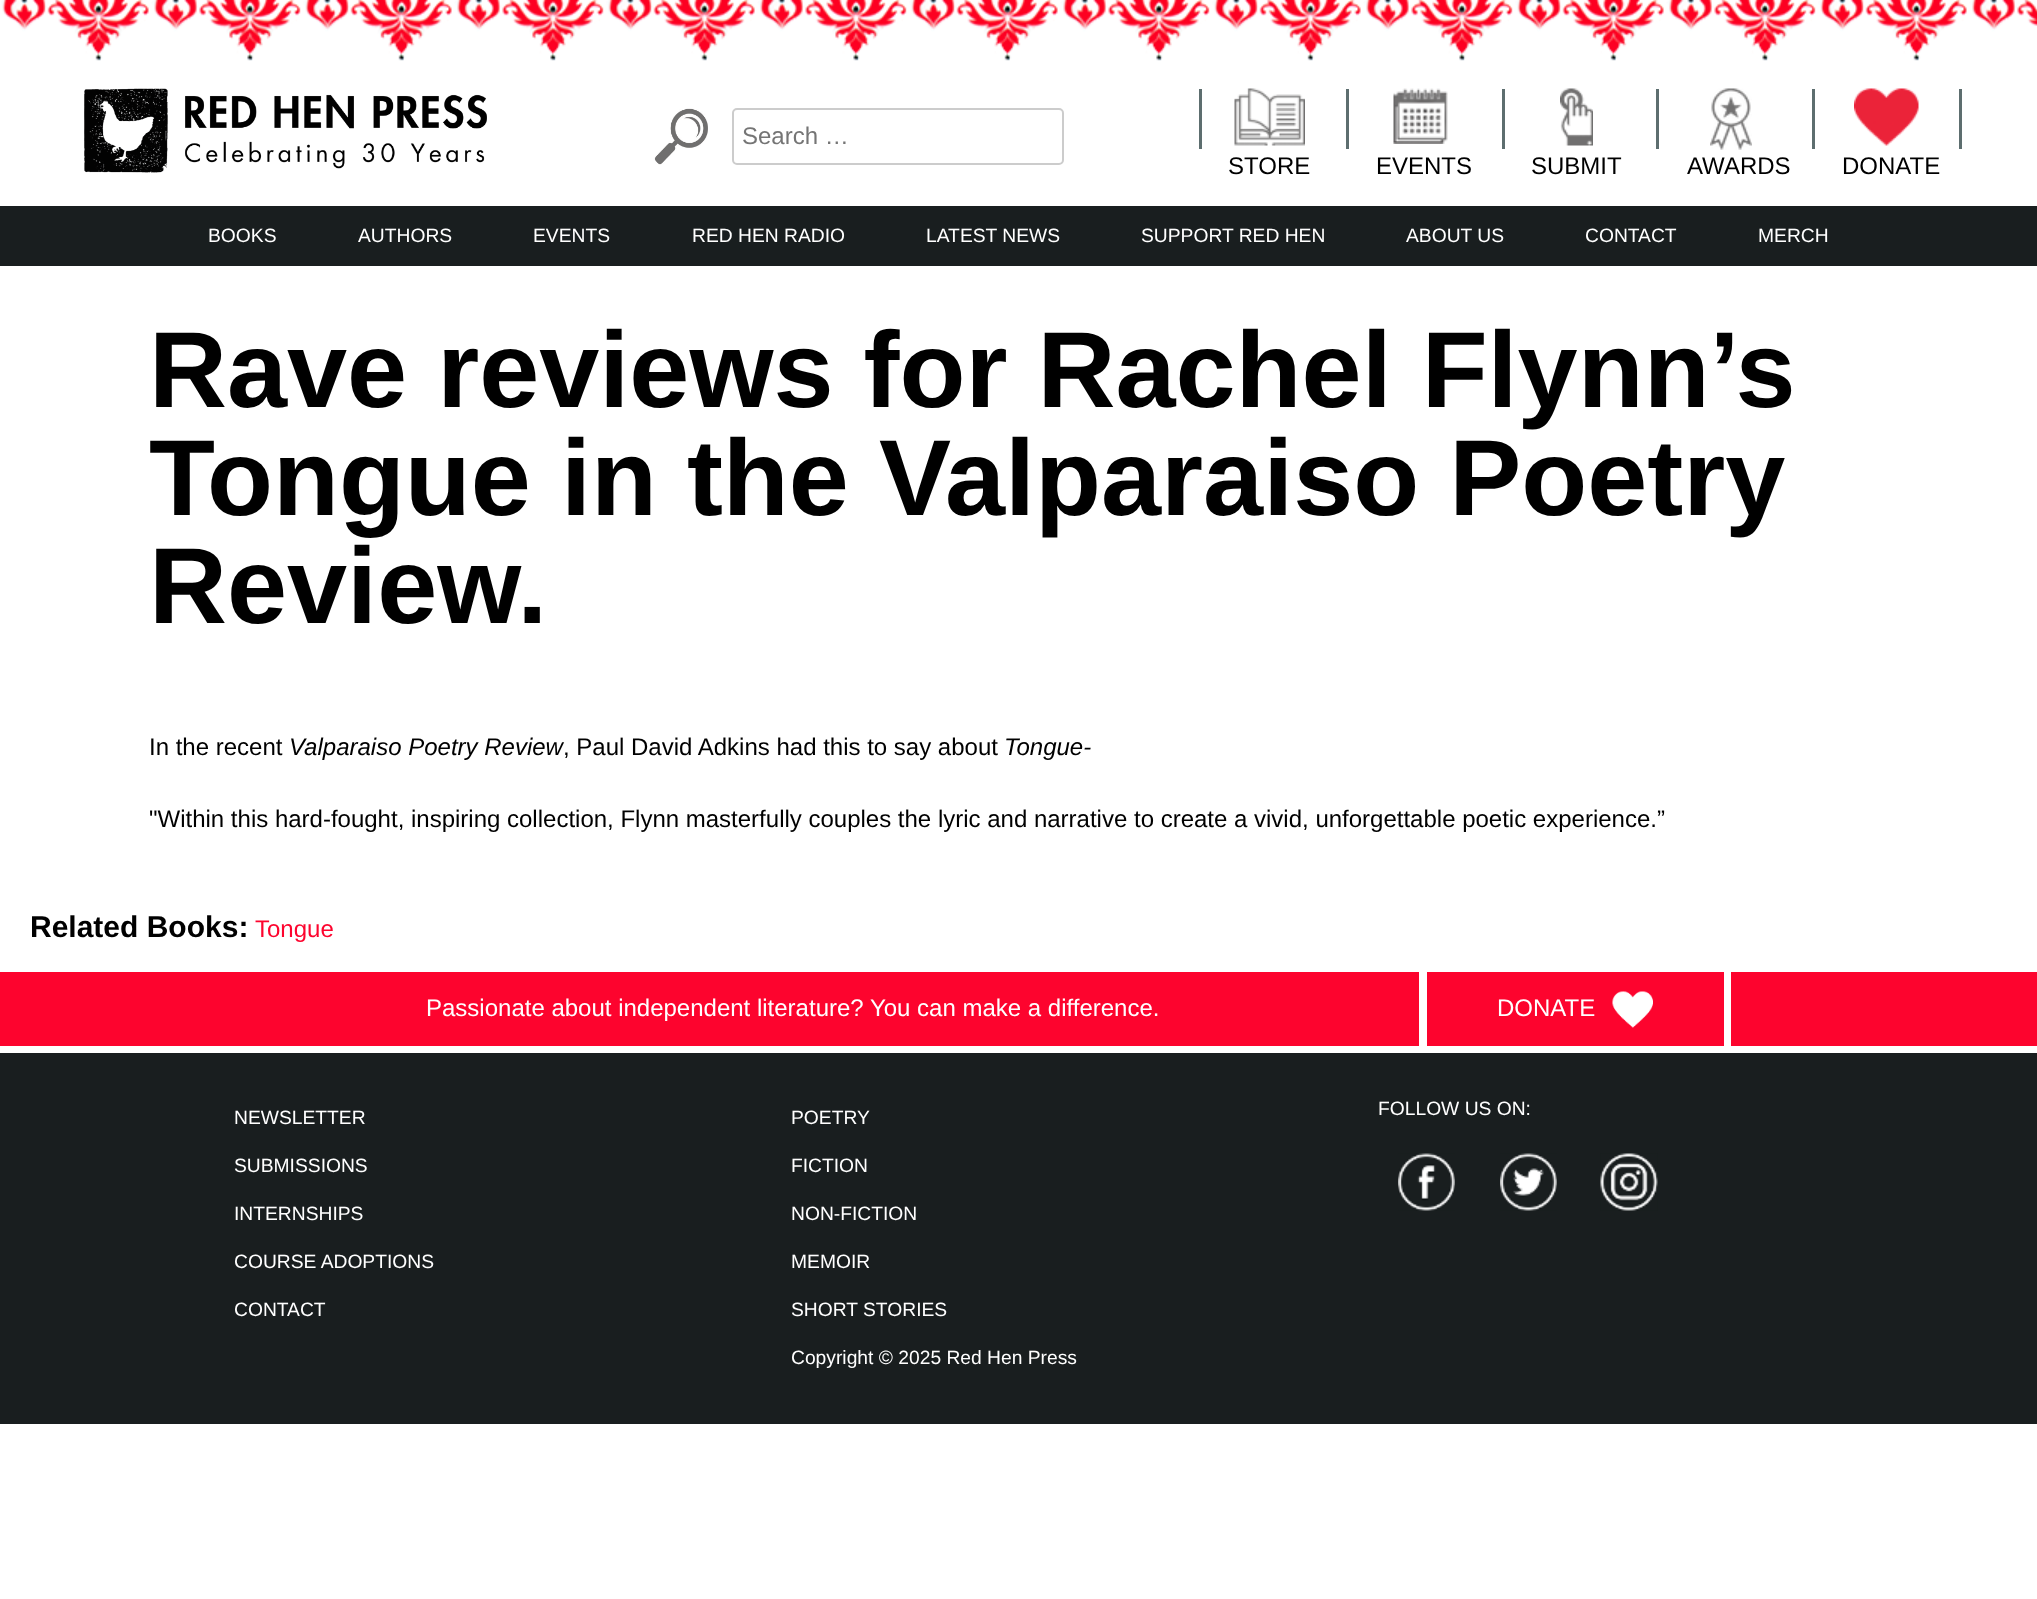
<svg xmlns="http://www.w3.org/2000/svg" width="2037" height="1599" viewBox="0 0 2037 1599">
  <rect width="100%" height="100%" fill="#ffffff"/>
  <image x="1" y="0" width="2036" height="61" href="img1.png"/>
  <image x="84" y="88" width="403" height="85" href="img2.png"/>
  <image x="654" y="108" width="54" height="57" href="img3.png"/>
  <rect x="733" y="109" width="330" height="55" rx="4" fill="none" stroke="#cccccc" stroke-width="2"/>
  <text x="742" y="144" font-family="Liberation Sans" font-size="24" fill="#757575">Search …</text>
  <image x="1234" y="88" width="71" height="58" href="img4.png"/>
  <rect x="1199" y="89" width="3" height="60" fill="#5d6e6f"/>
  <text x="1228" y="174" font-family="Liberation Sans" font-size="24" fill="#000000">STORE</text>
  <image x="1393" y="88" width="55" height="56" href="img5.png"/>
  <rect x="1346" y="89" width="3" height="60" fill="#5d6e6f"/>
  <text x="1376" y="174" font-family="Liberation Sans" font-size="24" fill="#000000">EVENTS</text>
  <image x="1560" y="88" width="33" height="58" href="img6.png"/>
  <rect x="1502" y="89" width="3" height="60" fill="#5d6e6f"/>
  <text x="1531" y="174" font-family="Liberation Sans" font-size="24" fill="#000000">SUBMIT</text>
  <image x="1710" y="88" width="42" height="62" href="img7.png"/>
  <rect x="1656" y="89" width="3" height="60" fill="#5d6e6f"/>
  <text x="1687" y="174" font-family="Liberation Sans" font-size="24" fill="#000000">AWARDS</text>
  <image x="1854" y="88" width="65" height="58" href="img8.png"/>
  <rect x="1812" y="89" width="3" height="60" fill="#5d6e6f"/>
  <rect x="1959" y="89" width="3" height="60" fill="#5d6e6f"/>
  <text x="1842" y="174" font-family="Liberation Sans" font-size="24" fill="#000000">DONATE</text>
  <rect x="0" y="206" width="2037" height="60" fill="#191e1f"/>
  <text x="208" y="242" font-family="Liberation Sans" font-size="19.25" fill="#ffffff">BOOKS</text>
  <text x="358" y="242" font-family="Liberation Sans" font-size="19.25" fill="#ffffff">AUTHORS</text>
  <text x="533" y="242" font-family="Liberation Sans" font-size="19.25" fill="#ffffff">EVENTS</text>
  <text x="692" y="242" font-family="Liberation Sans" font-size="19.25" fill="#ffffff">RED HEN RADIO</text>
  <text x="926" y="242" font-family="Liberation Sans" font-size="19.25" fill="#ffffff">LATEST NEWS</text>
  <text x="1141" y="242" font-family="Liberation Sans" font-size="19.25" fill="#ffffff">SUPPORT RED HEN</text>
  <text x="1406" y="242" font-family="Liberation Sans" font-size="19.25" fill="#ffffff">ABOUT US</text>
  <text x="1585" y="242" font-family="Liberation Sans" font-size="19.25" fill="#ffffff">CONTACT</text>
  <text x="1758" y="242" font-family="Liberation Sans" font-size="19.25" fill="#ffffff">MERCH</text>
  <text x="149" y="407" font-family="Liberation Sans" font-size="108" font-weight="bold" fill="#000000">Rave reviews for Rachel Flynn’s</text>
  <text x="149" y="515" font-family="Liberation Sans" font-size="108" font-weight="bold" fill="#000000">Tongue in the Valparaiso Poetry</text>
  <text x="149" y="623" font-family="Liberation Sans" font-size="108" font-weight="bold" fill="#000000">Review.</text>
  <text x="149" y="755" font-family="Liberation Sans" font-size="24" fill="#000000">In the recent</text>
  <text x="289" y="755" font-family="Liberation Sans" font-size="24" font-style="italic" fill="#000000">Valparaiso Poetry Review</text>
  <text x="563" y="755" font-family="Liberation Sans" font-size="24" fill="#000000">, Paul David Adkins had this to say about</text>
  <text x="1004" y="755" font-family="Liberation Sans" font-size="24" font-style="italic" fill="#000000">Tongue-</text>
  <text x="149" y="827" font-family="Liberation Sans" font-size="24" fill="#000000">"Within this hard-fought, inspiring collection, Flynn masterfully couples the lyric and narrative to create a vivid, unforgettable poetic experience.”</text>
  <text x="30" y="937" font-family="Liberation Sans" font-size="30" font-weight="bold" fill="#000000">Related Books:</text>
  <text x="255" y="937" font-family="Liberation Sans" font-size="24" fill="#fd042e">Tongue</text>
  <rect x="0" y="972" width="2037" height="74" fill="#fd042e"/>
  <rect x="1419" y="972" width="8" height="74" fill="#ffffff"/>
  <text x="426" y="1016" font-family="Liberation Sans" font-size="24" fill="#ffffff">Passionate about independent literature? You can make a difference.</text>
  <rect x="1724" y="972" width="7" height="74" fill="#ffffff"/>
  <text x="1497" y="1016" font-family="Liberation Sans" font-size="24" fill="#ffffff">DONATE</text>
  <image x="1612" y="991" width="41" height="37" href="img9.png"/>
  <rect x="0" y="1053" width="2037" height="371" fill="#191e1f"/>
  <text x="1378" y="1115" font-family="Liberation Sans" font-size="19.25" fill="#ffffff">FOLLOW US ON:</text>
  <image x="1398" y="1153" width="57" height="58" href="img10.png"/>
  <image x="1500" y="1153" width="57" height="58" href="img11.png"/>
  <image x="1600" y="1153" width="58" height="58" href="img12.png"/>
  <text x="234" y="1124" font-family="Liberation Sans" font-size="19.25" fill="#ffffff">NEWSLETTER</text>
  <text x="234" y="1172" font-family="Liberation Sans" font-size="19.25" fill="#ffffff">SUBMISSIONS</text>
  <text x="234" y="1220" font-family="Liberation Sans" font-size="19.25" fill="#ffffff">INTERNSHIPS</text>
  <text x="234" y="1268" font-family="Liberation Sans" font-size="19.25" fill="#ffffff">COURSE ADOPTIONS</text>
  <text x="234" y="1316" font-family="Liberation Sans" font-size="19.25" fill="#ffffff">CONTACT</text>
  <text x="791" y="1124" font-family="Liberation Sans" font-size="19.25" fill="#ffffff">POETRY</text>
  <text x="791" y="1172" font-family="Liberation Sans" font-size="19.25" fill="#ffffff">FICTION</text>
  <text x="791" y="1220" font-family="Liberation Sans" font-size="19.25" fill="#ffffff">NON-FICTION</text>
  <text x="791" y="1268" font-family="Liberation Sans" font-size="19.25" fill="#ffffff">MEMOIR</text>
  <text x="791" y="1316" font-family="Liberation Sans" font-size="19.25" fill="#ffffff">SHORT STORIES</text>
  <text x="791" y="1364" font-family="Liberation Sans" font-size="19.25" fill="#ffffff">Copyright © 2025 Red Hen Press</text>
</svg>
